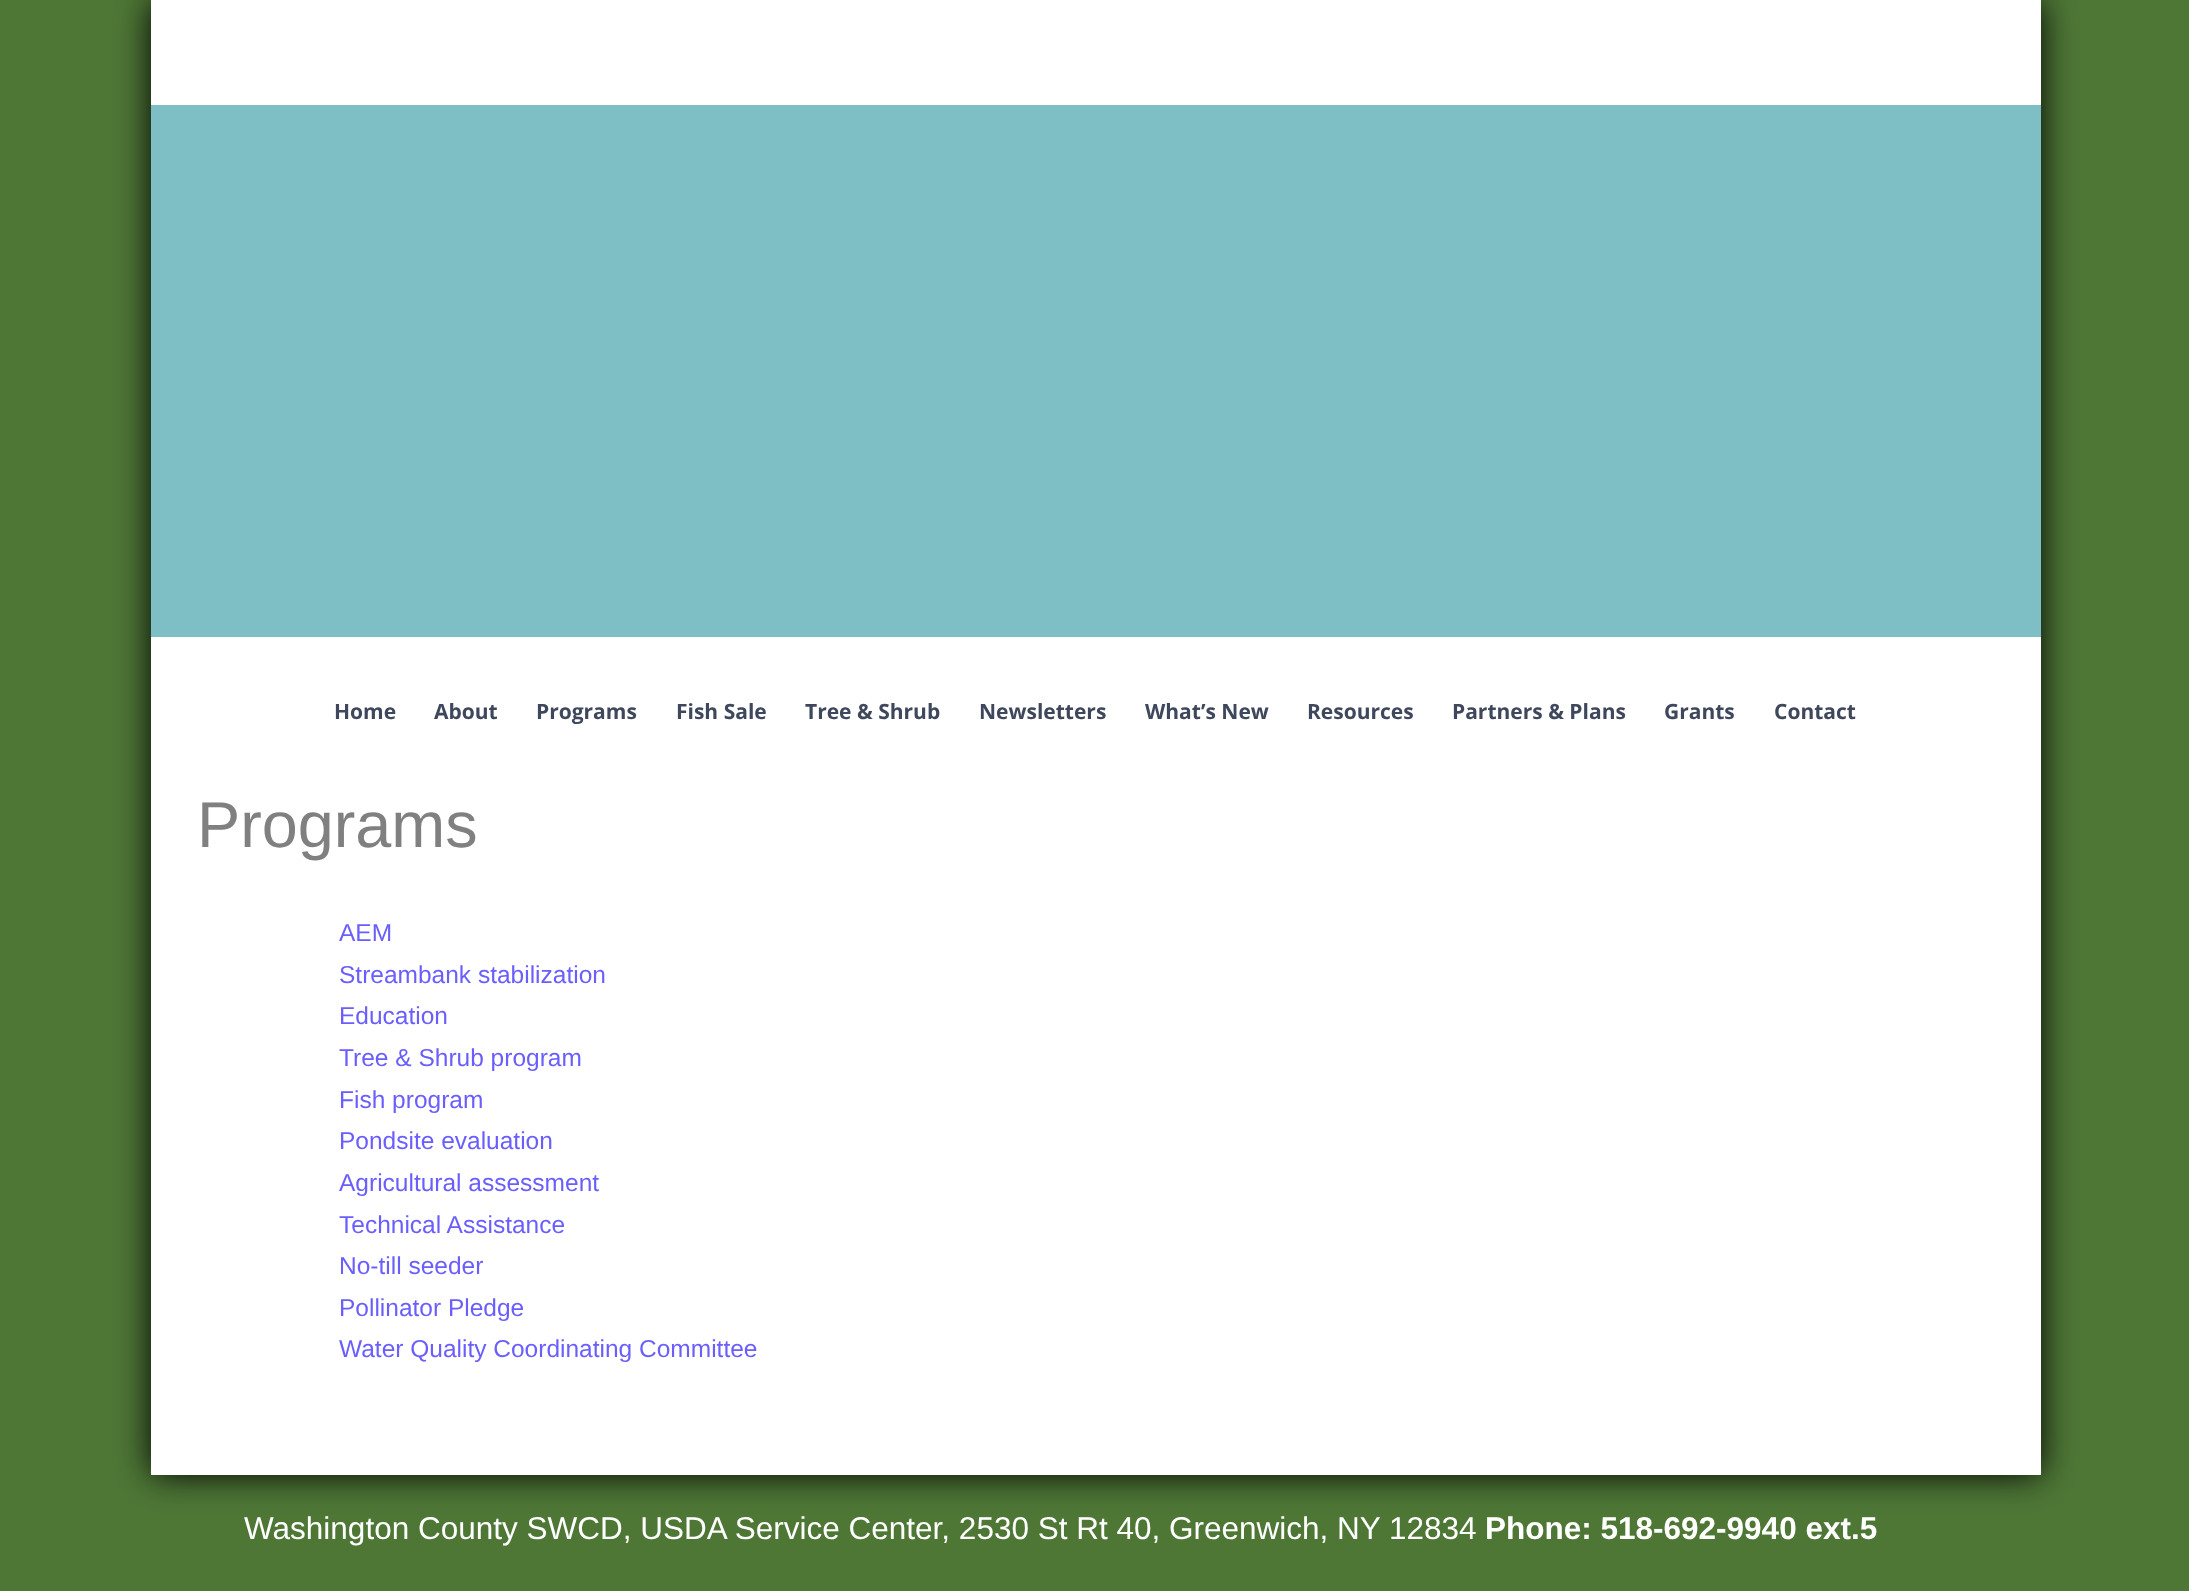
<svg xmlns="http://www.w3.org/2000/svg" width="2189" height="1591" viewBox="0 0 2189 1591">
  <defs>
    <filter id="blur1" x="-50%" y="-200%" width="200%" height="500%"><feGaussianBlur stdDeviation="17.5"/></filter>
  </defs>
  <rect width="100%" height="100%" fill="#4e7736"/>
  <rect x="151" y="0" width="1890" height="1475" fill="#000000" filter="url(#blur1)"/>
  <rect x="151" y="0" width="1890" height="1475" fill="#ffffff"/>
  <rect x="151" y="105" width="1890" height="532" fill="#7ebec5"/>
  <text x="334" y="719" font-family="Open Sans" font-size="21" font-weight="bold" fill="#3e475c">Home</text>
  <text x="434" y="719" font-family="Open Sans" font-size="21" font-weight="bold" fill="#3e475c">About</text>
  <text x="536" y="719" font-family="Open Sans" font-size="21" font-weight="bold" fill="#3e475c">Programs</text>
  <text x="676" y="719" font-family="Open Sans" font-size="21" font-weight="bold" fill="#3e475c">Fish Sale</text>
  <text x="805" y="719" font-family="Open Sans" font-size="21" font-weight="bold" fill="#3e475c">Tree &amp; Shrub</text>
  <text x="979" y="719" font-family="Open Sans" font-size="21" font-weight="bold" fill="#3e475c">Newsletters</text>
  <text x="1145" y="719" font-family="Open Sans" font-size="21" font-weight="bold" fill="#3e475c">What’s New</text>
  <text x="1307" y="719" font-family="Open Sans" font-size="21" font-weight="bold" fill="#3e475c">Resources</text>
  <text x="1452" y="719" font-family="Open Sans" font-size="21" font-weight="bold" fill="#3e475c">Partners &amp; Plans</text>
  <text x="1664" y="719" font-family="Open Sans" font-size="21" font-weight="bold" fill="#3e475c">Grants</text>
  <text x="1774" y="719" font-family="Open Sans" font-size="21" font-weight="bold" fill="#3e475c">Contact</text>
  <text x="197" y="847" font-family="Liberation Sans" font-size="64.75" fill="#808080">Programs</text>
  <text x="339" y="941" font-family="Liberation Sans" font-size="24.5" fill="#6a5eff">AEM</text>
  <text x="339" y="983" font-family="Liberation Sans" font-size="24.5" fill="#6a5eff">Streambank stabilization</text>
  <text x="339" y="1024" font-family="Liberation Sans" font-size="24.5" fill="#6a5eff">Education</text>
  <text x="339" y="1066" font-family="Liberation Sans" font-size="24.5" fill="#6a5eff">Tree &amp; Shrub program</text>
  <text x="339" y="1108" font-family="Liberation Sans" font-size="24.5" fill="#6a5eff">Fish program</text>
  <text x="339" y="1149" font-family="Liberation Sans" font-size="24.5" fill="#6a5eff">Pondsite evaluation</text>
  <text x="339" y="1191" font-family="Liberation Sans" font-size="24.5" fill="#6a5eff">Agricultural assessment</text>
  <text x="339" y="1233" font-family="Liberation Sans" font-size="24.5" fill="#6a5eff">Technical Assistance</text>
  <text x="339" y="1274" font-family="Liberation Sans" font-size="24.5" fill="#6a5eff">No-till seeder</text>
  <text x="339" y="1316" font-family="Liberation Sans" font-size="24.5" fill="#6a5eff">Pollinator Pledge</text>
  <text x="339" y="1357" font-family="Liberation Sans" font-size="24.5" fill="#6a5eff">Water Quality Coordinating Committee</text>
  <text x="244" y="1539" font-family="Liberation Sans" font-size="31.5" fill="#ffffff">Washington County SWCD, USDA Service Center, 2530 St Rt 40, Greenwich, NY 12834</text>
  <text x="1485" y="1539" font-family="Liberation Sans" font-size="31.5" font-weight="bold" fill="#ffffff">Phone: 518-692-9940 ext.5</text>
</svg>
